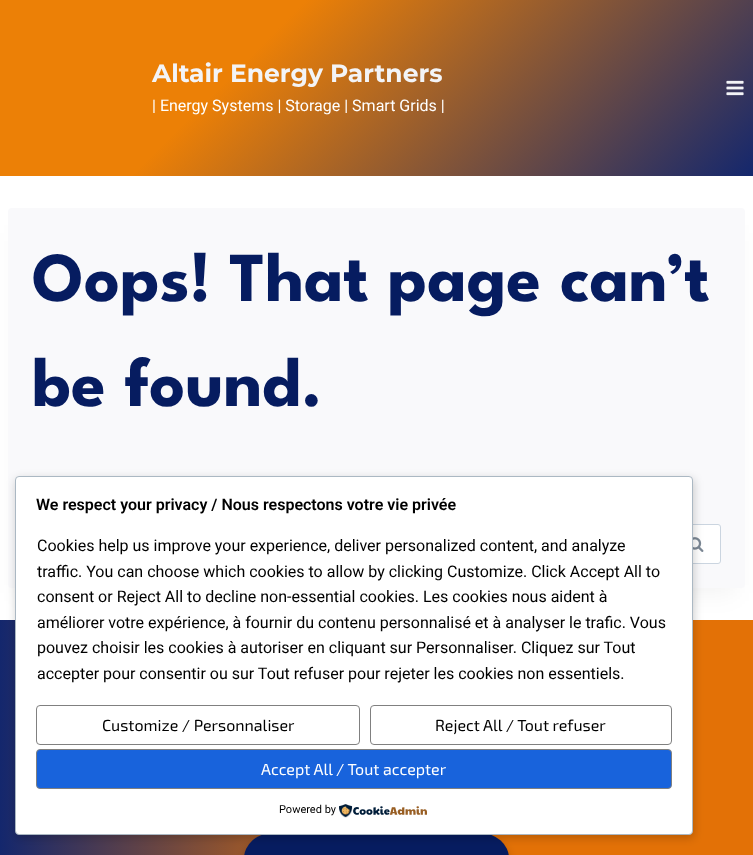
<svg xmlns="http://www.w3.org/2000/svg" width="753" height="855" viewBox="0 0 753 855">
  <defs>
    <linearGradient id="g1" gradientUnits="userSpaceOnUse" x1="144" y1="-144" x2="609" y2="320"><stop offset="0.33" stop-color="#ec8006"/><stop offset="1" stop-color="#14276d"/></linearGradient>
    <linearGradient id="g2" gradientUnits="userSpaceOnUse" x1="753" y1="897" x2="0" y2="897"><stop offset="0.49" stop-color="#e37106"/><stop offset="1" stop-color="#14276d"/></linearGradient>
    <filter id="blur1" x="-50%" y="-200%" width="200%" height="500%"><feGaussianBlur stdDeviation="12.5"/></filter>
    <filter id="blur2" x="-50%" y="-200%" width="200%" height="500%"><feGaussianBlur stdDeviation="5"/></filter>
  </defs>
  <rect width="100%" height="100%" fill="#ffffff"/>
  <rect x="0" y="0" width="753" height="176" fill="url(#g1)"/>
  <text x="152" y="82" font-family="Montserrat" font-size="25" font-weight="100" fill="#f3f4f7">Altair Energy Partners</text>
  <text x="152" y="111" font-family="Roboto" font-size="16" fill="#ffffff">| Energy Systems | Storage | Smart Grids |</text>
  <image x="726" y="80" width="18" height="16" href="img1.png"/>
  <rect x="0" y="620" width="753" height="235" fill="url(#g2)"/>
  <rect x="18" y="233" width="717" height="360" fill="#000000" fill-opacity="0.05" filter="url(#blur1)"/>
  <rect x="8" y="208" width="737" height="380" rx="4" fill="#f9f9fb"/>
  <text x="32" y="301" font-family="League Spartan" font-size="70" font-weight="bold" fill="#061c60">Oops! That page can’t</text>
  <text x="32" y="406" font-family="League Spartan" font-size="70" font-weight="bold" fill="#061c60">be found.</text>
  <rect x="32.5" y="524.5" width="688" height="39" rx="2.5" fill="#ffffff" stroke="#cbd5e0"/>
  <image x="693" y="537" width="11" height="15" href="img2.png"/>
  <rect x="244" y="837" width="265" height="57" rx="28.5" fill="#000000" fill-opacity="0.25" filter="url(#blur2)"/>
  <rect x="244" y="833" width="265" height="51" rx="28.5" fill="#061c60"/>
  <rect x="16" y="479" width="678" height="359" rx="4" fill="#000000" fill-opacity="0.2" filter="url(#blur2)"/>
  <rect x="15.5" y="476.5" width="677" height="358" rx="3.5" fill="#ffffff" stroke="#abb8c3"/>
  <text x="36" y="510" font-family="Roboto" font-size="16" font-weight="600" fill="#000000">We respect your privacy / Nous respectons votre vie privée</text>
  <text x="37" y="551" font-family="Roboto" font-size="16" fill="#000000">Cookies help us improve your experience, deliver personalized content, and analyze</text>
  <text x="37" y="577" font-family="Roboto" font-size="16" fill="#000000">traffic. You can choose which cookies to allow by clicking Customize. Click Accept All to</text>
  <text x="37" y="602" font-family="Roboto" font-size="16" fill="#000000">consent or Reject All to decline non-essential cookies. Les cookies nous aident à</text>
  <text x="37" y="628" font-family="Roboto" font-size="16" fill="#000000">améliorer votre expérience, à fournir du contenu personnalisé et à analyser le trafic. Vous</text>
  <text x="37" y="653" font-family="Roboto" font-size="16" fill="#000000">pouvez choisir les cookies à autoriser en cliquant sur Personnaliser. Cliquez sur Tout</text>
  <text x="37" y="679" font-family="Roboto" font-size="16" fill="#000000">accepter pour consentir ou sur Tout refuser pour rejeter les cookies non essentiels.</text>
  <rect x="36.5" y="705.5" width="323" height="39" rx="3.5" fill="none" stroke="#808080"/>
  <text x="102" y="731" font-family="'Exo 2'" font-size="16" fill="#000000">Customize / Personnaliser</text>
  <rect x="370.5" y="705.5" width="301" height="39" rx="3.5" fill="none" stroke="#808080"/>
  <text x="435" y="731" font-family="'Exo 2'" font-size="16" fill="#000000">Reject All / Tout refuser</text>
  <rect x="36.5" y="749.5" width="635" height="39" rx="3.5" fill="#1863dc" stroke="#808080"/>
  <text x="261" y="775" font-family="'Exo 2'" font-size="16" fill="#ffffff">Accept All / Tout accepter</text>
  <text x="279" y="813" font-family="Roboto" font-size="11" fill="#000000">Powered by</text>
  <image x="339" y="804" width="88" height="14" href="img3.png"/>
</svg>
